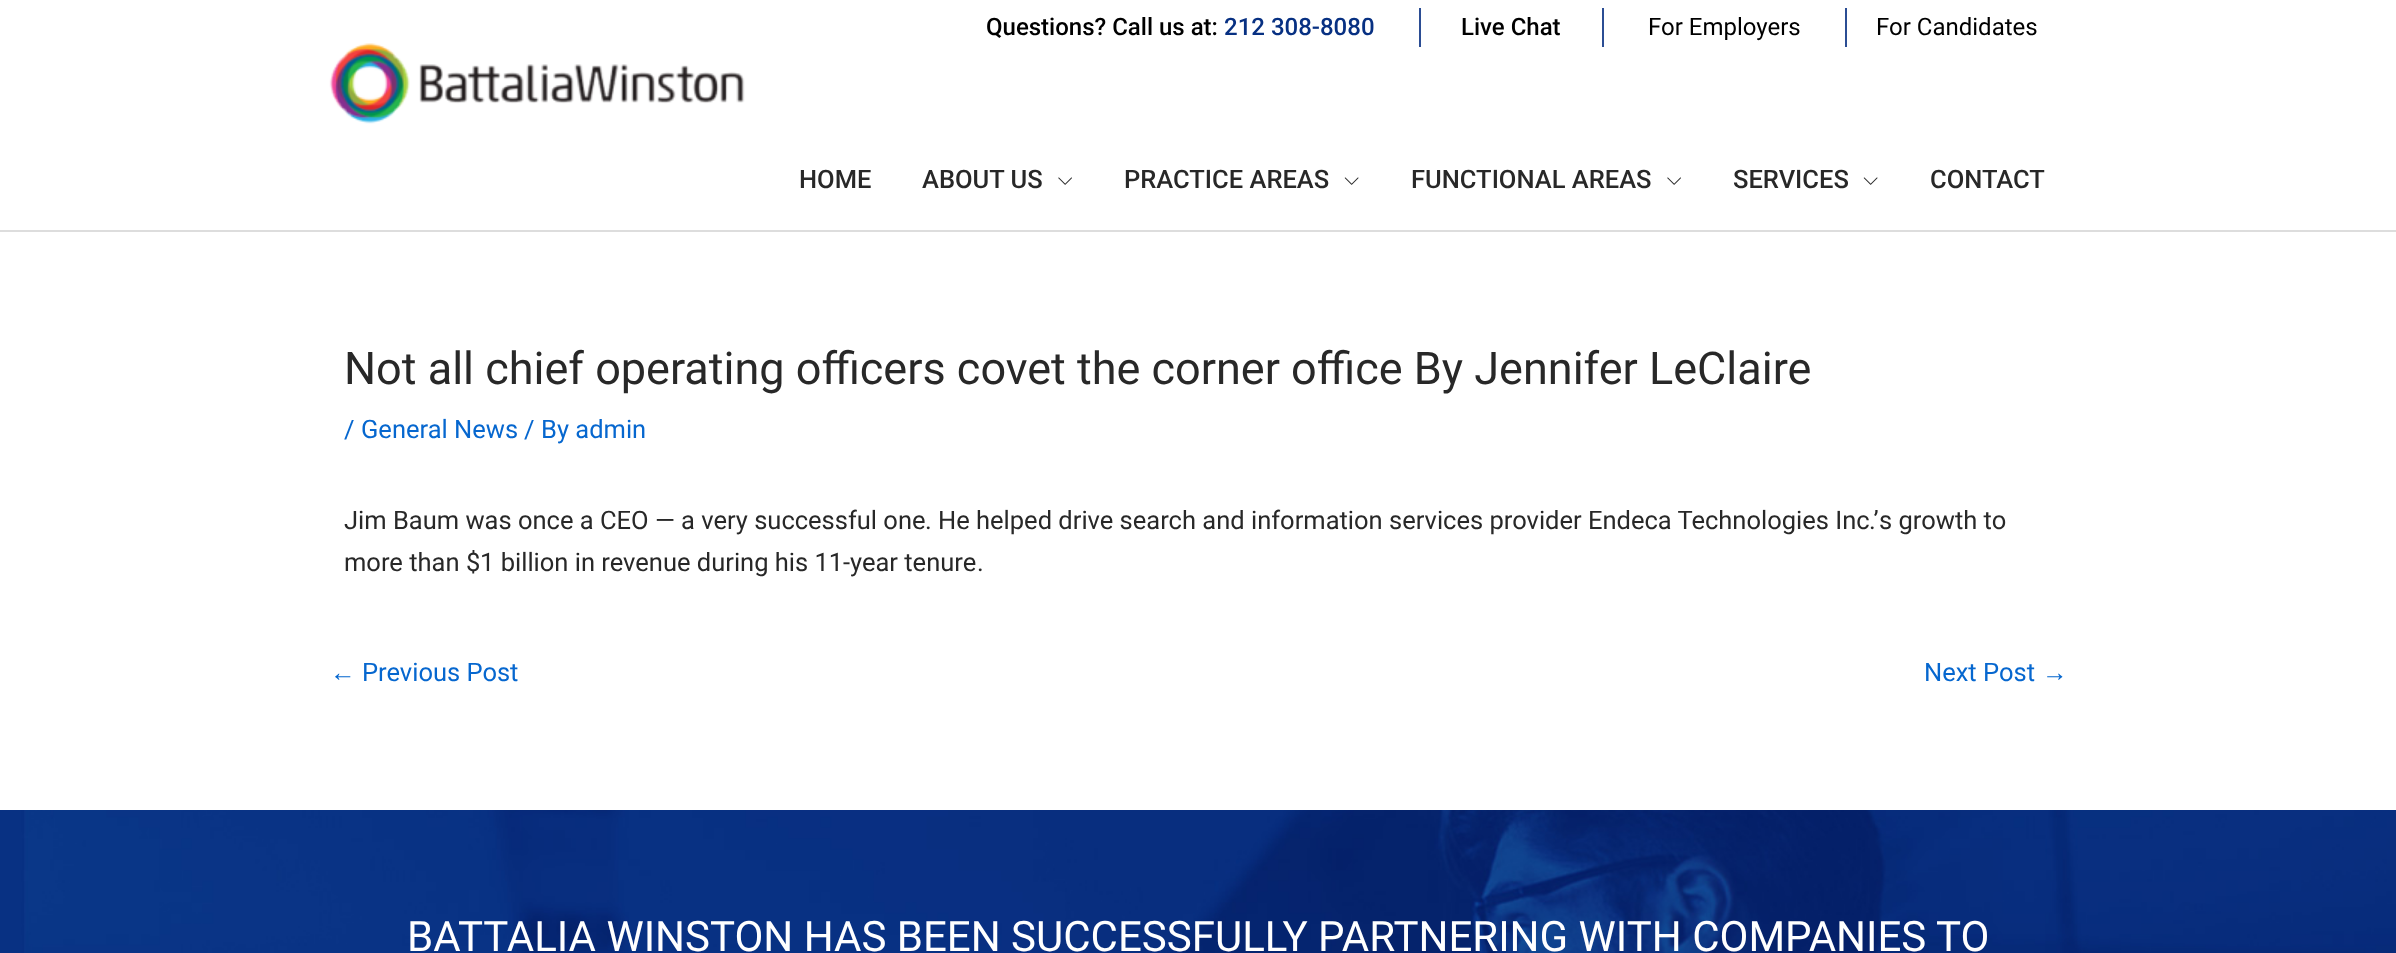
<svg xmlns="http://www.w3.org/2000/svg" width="2396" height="953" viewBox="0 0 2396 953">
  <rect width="100%" height="100%" fill="#ffffff"/>
  <rect x="1419" y="8" width="2" height="39" fill="#2b4d94"/>
  <text x="986" y="35" font-family="Roboto" font-size="24" font-weight="500" fill="#000000">Questions? Call us at:</text>
  <text x="1224" y="35" font-family="Roboto" font-size="24" font-weight="500" fill="#073082">212 308-8080</text>
  <rect x="1602" y="8" width="2" height="39" fill="#2b4d94"/>
  <text x="1461" y="35" font-family="Roboto" font-size="24" font-weight="500" fill="#000000">Live Chat</text>
  <rect x="1845" y="8" width="2" height="39" fill="#2b4d94"/>
  <text x="1648" y="35" font-family="Roboto" font-size="24" fill="#000000">For Employers</text>
  <text x="1876" y="35" font-family="Roboto" font-size="24" fill="#000000">For Candidates</text>
  <rect x="0" y="230" width="2396" height="2" fill="#dddddd"/>
  <image x="329" y="43" width="416" height="81" href="img1.png"/>
  <text x="799" y="188" font-family="Roboto" font-size="25.5" font-weight="500" fill="#282828">HOME</text>
  <text x="922" y="188" font-family="Roboto" font-size="25.5" font-weight="500" fill="#282828">ABOUT US</text>
  <image x="1058" y="177" width="14" height="8" href="img2.png"/>
  <text x="1124" y="188" font-family="Roboto" font-size="25.5" font-weight="500" fill="#282828">PRACTICE AREAS</text>
  <image x="1344" y="177" width="15" height="8" href="img3.png"/>
  <text x="1411" y="188" font-family="Roboto" font-size="25.5" font-weight="500" fill="#282828">FUNCTIONAL AREAS</text>
  <image x="1667" y="177" width="14" height="8" href="img2.png"/>
  <text x="1733" y="188" font-family="Roboto" font-size="25.5" font-weight="500" fill="#282828">SERVICES</text>
  <image x="1863" y="177" width="15" height="8" href="img3.png"/>
  <text x="1930" y="188" font-family="Roboto" font-size="25.5" font-weight="500" fill="#282828">CONTACT</text>
  <text x="344" y="384" font-family="Roboto" font-size="45" fill="#282828">Not all chief operating officers covet the corner office By Jennifer LeClaire</text>
  <text x="344" y="438" font-family="'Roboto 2'" font-size="25.5" fill="#0667cf">/</text>
  <text x="361" y="438" font-family="Roboto" font-size="25.5" fill="#0667cf">General News</text>
  <text x="524" y="438" font-family="'Roboto 2'" font-size="25.5" fill="#0667cf">/</text>
  <text x="541" y="438" font-family="Roboto" font-size="25.5" fill="#0667cf">By admin</text>
  <text x="344" y="529" font-family="Roboto" font-size="25.5" fill="#282828">Jim Baum was once a CEO</text>
  <text x="655" y="529" font-family="'Roboto 2'" font-size="25.5" fill="#282828">—</text>
  <text x="681" y="529" font-family="Roboto" font-size="25.5" fill="#282828">a very successful one</text>
  <text x="938" y="529" font-family="Roboto" font-size="25.5" fill="#282828">He helped drive search and information services provider Endeca Technologies Inc</text>
  <text x="1869" y="529" font-family="'Roboto 2'" font-size="25.5" fill="#282828">.’</text>
  <text x="1879" y="529" font-family="Roboto" font-size="25.5" fill="#282828">s growth to</text>
  <text x="925" y="529" font-family="'Roboto 2'" font-size="25.5" fill="#282828">.</text>
  <text x="344" y="571" font-family="Roboto" font-size="25.5" fill="#282828">more than</text>
  <text x="466" y="571" font-family="'Roboto 2'" font-size="25.5" fill="#282828">$</text>
  <text x="480" y="571" font-family="Roboto" font-size="25.5" fill="#282828">1 billion in revenue during his 11</text>
  <text x="843" y="571" font-family="'Roboto 2'" font-size="25.5" fill="#282828">-</text>
  <text x="850" y="571" font-family="Roboto" font-size="25.5" fill="#282828">year tenure</text>
  <text x="977" y="571" font-family="'Roboto 2'" font-size="25.5" fill="#282828">.</text>
  <text x="330" y="681" font-family="Liberation Sans" font-size="25.5" fill="#0667cf">←</text>
  <text x="362" y="681" font-family="Roboto" font-size="25.5" fill="#0667cf">Previous Post</text>
  <text x="1924" y="681" font-family="Roboto" font-size="25.5" fill="#0667cf">Next Post</text>
  <text x="2042" y="681" font-family="Liberation Sans" font-size="25.5" fill="#0667cf">→</text>
  <image x="0" y="810" width="2396" height="143" href="img4.png"/>
  <text x="407" y="951" font-family="Roboto" font-size="42" fill="#ffffff">BATTALIA WINSTON HAS BEEN SUCCESSFULLY PARTNERING WITH COMPANIES TO</text>
</svg>
